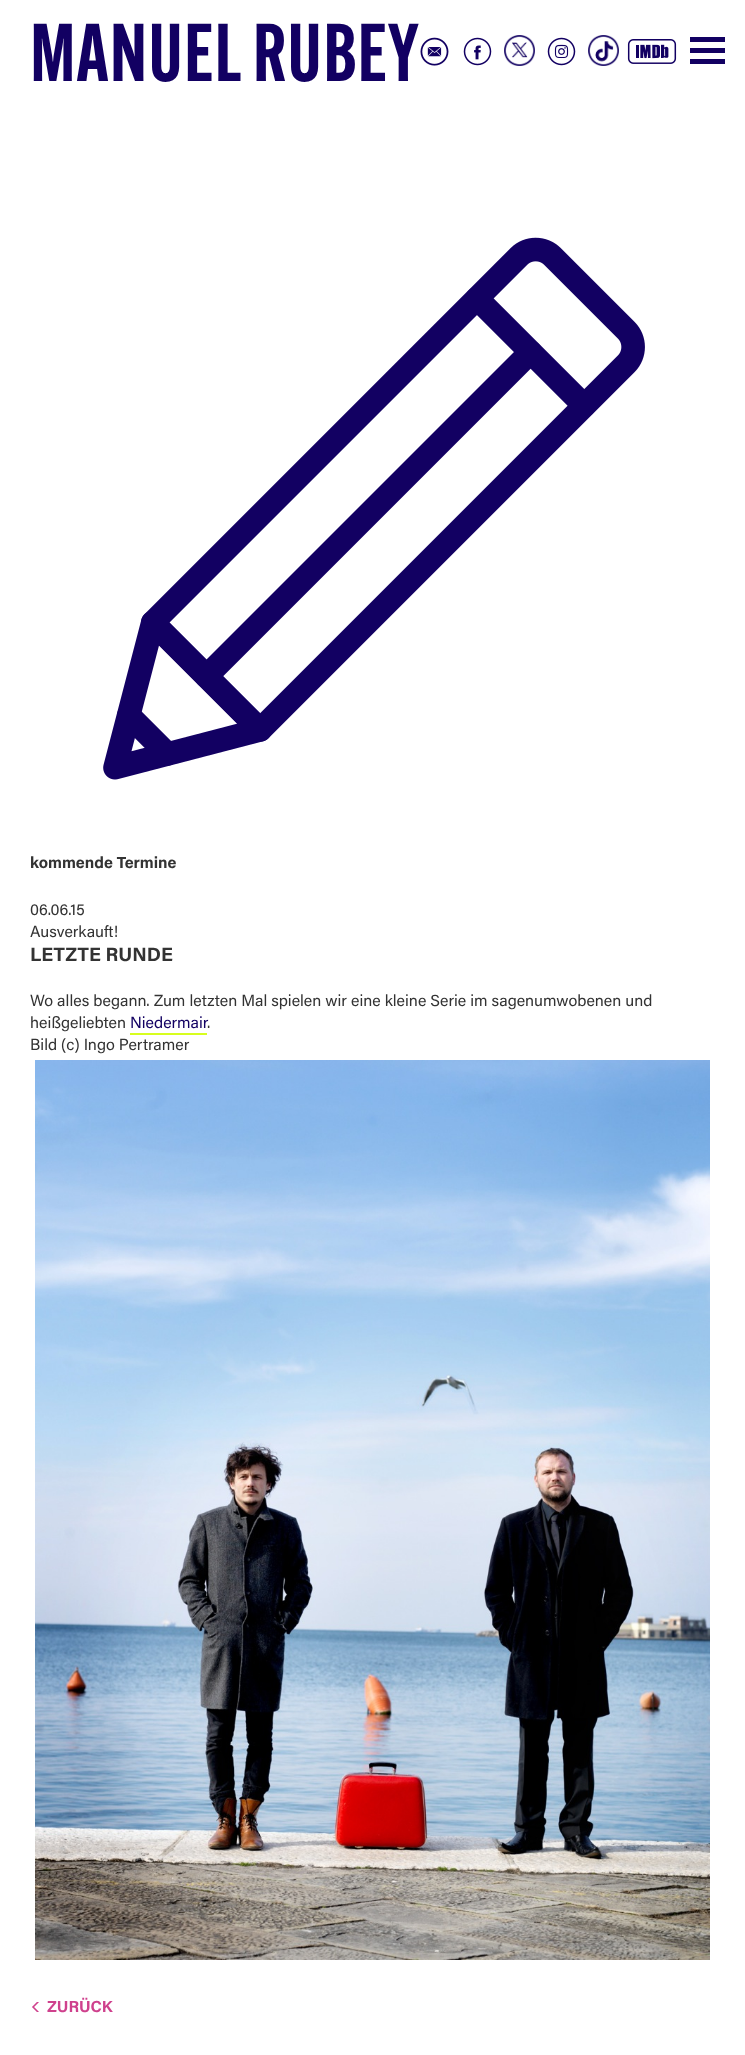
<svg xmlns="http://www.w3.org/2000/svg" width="745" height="2055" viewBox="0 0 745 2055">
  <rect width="100%" height="100%" fill="#ffffff"/>
  <text x="30" y="81" font-family="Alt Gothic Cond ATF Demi" font-size="80" font-weight="600" letter-spacing="1" fill="#120062">MANUEL RUBEY</text>
  <image x="420" y="37" width="29" height="29" href="img1.png"/>
  <image x="463" y="37" width="29" height="29" href="img2.png"/>
  <image x="504" y="35" width="31" height="31" href="img3.png"/>
  <image x="547" y="37" width="29" height="29" href="img4.png"/>
  <image x="588" y="35" width="31" height="31" href="img5.png"/>
  <image x="627" y="39" width="50" height="25" href="img6.png"/>
  <rect x="690" y="37" width="35" height="5" fill="#120062"/>
  <rect x="690" y="48" width="35" height="5" fill="#120062"/>
  <rect x="690" y="59" width="35" height="5" fill="#120062"/>
  <image x="103" y="237" width="542" height="543" href="img7.png"/>
  <text x="30" y="868" font-family="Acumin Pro" font-size="16" font-weight="bold" fill="#333333">kommende Termine</text>
  <text x="30" y="915" font-family="Acumin Pro" font-size="16" fill="#333333">06.06.15</text>
  <text x="30" y="937" font-family="Acumin Pro" font-size="16" fill="#333333">Ausverkauft!</text>
  <text x="30" y="961" font-family="Acumin Pro" font-size="19.25" font-weight="bold" fill="#333333">LETZTE RUNDE</text>
  <text x="30" y="1006" font-family="Acumin Pro" font-size="16" fill="#333333">Wo alles begann. Zum letzten Mal spielen wir eine kleine Serie im sagenumwobenen und</text>
  <text x="30" y="1028" font-family="Acumin Pro" font-size="16" fill="#333333">heißgeliebten</text>
  <text x="130" y="1028" font-family="Acumin Pro" font-size="16" fill="#120062">Niedermair</text>
  <rect x="130" y="1033" width="77" height="2" fill="#d7fe1e"/>
  <text x="207" y="1028" font-family="Acumin Pro" font-size="16" fill="#333333">.</text>
  <text x="30" y="1050" font-family="Acumin Pro" font-size="16" fill="#333333">Bild (c) Ingo Pertramer</text>
  <image x="35" y="1060" width="675" height="900" href="img8.png"/>
  <image x="32" y="2002" width="7" height="10" href="img9.png"/>
  <text x="47" y="2012" font-family="Acumin Pro" font-size="16" font-weight="bold" fill="#cf418d">ZURÜCK</text>
</svg>
